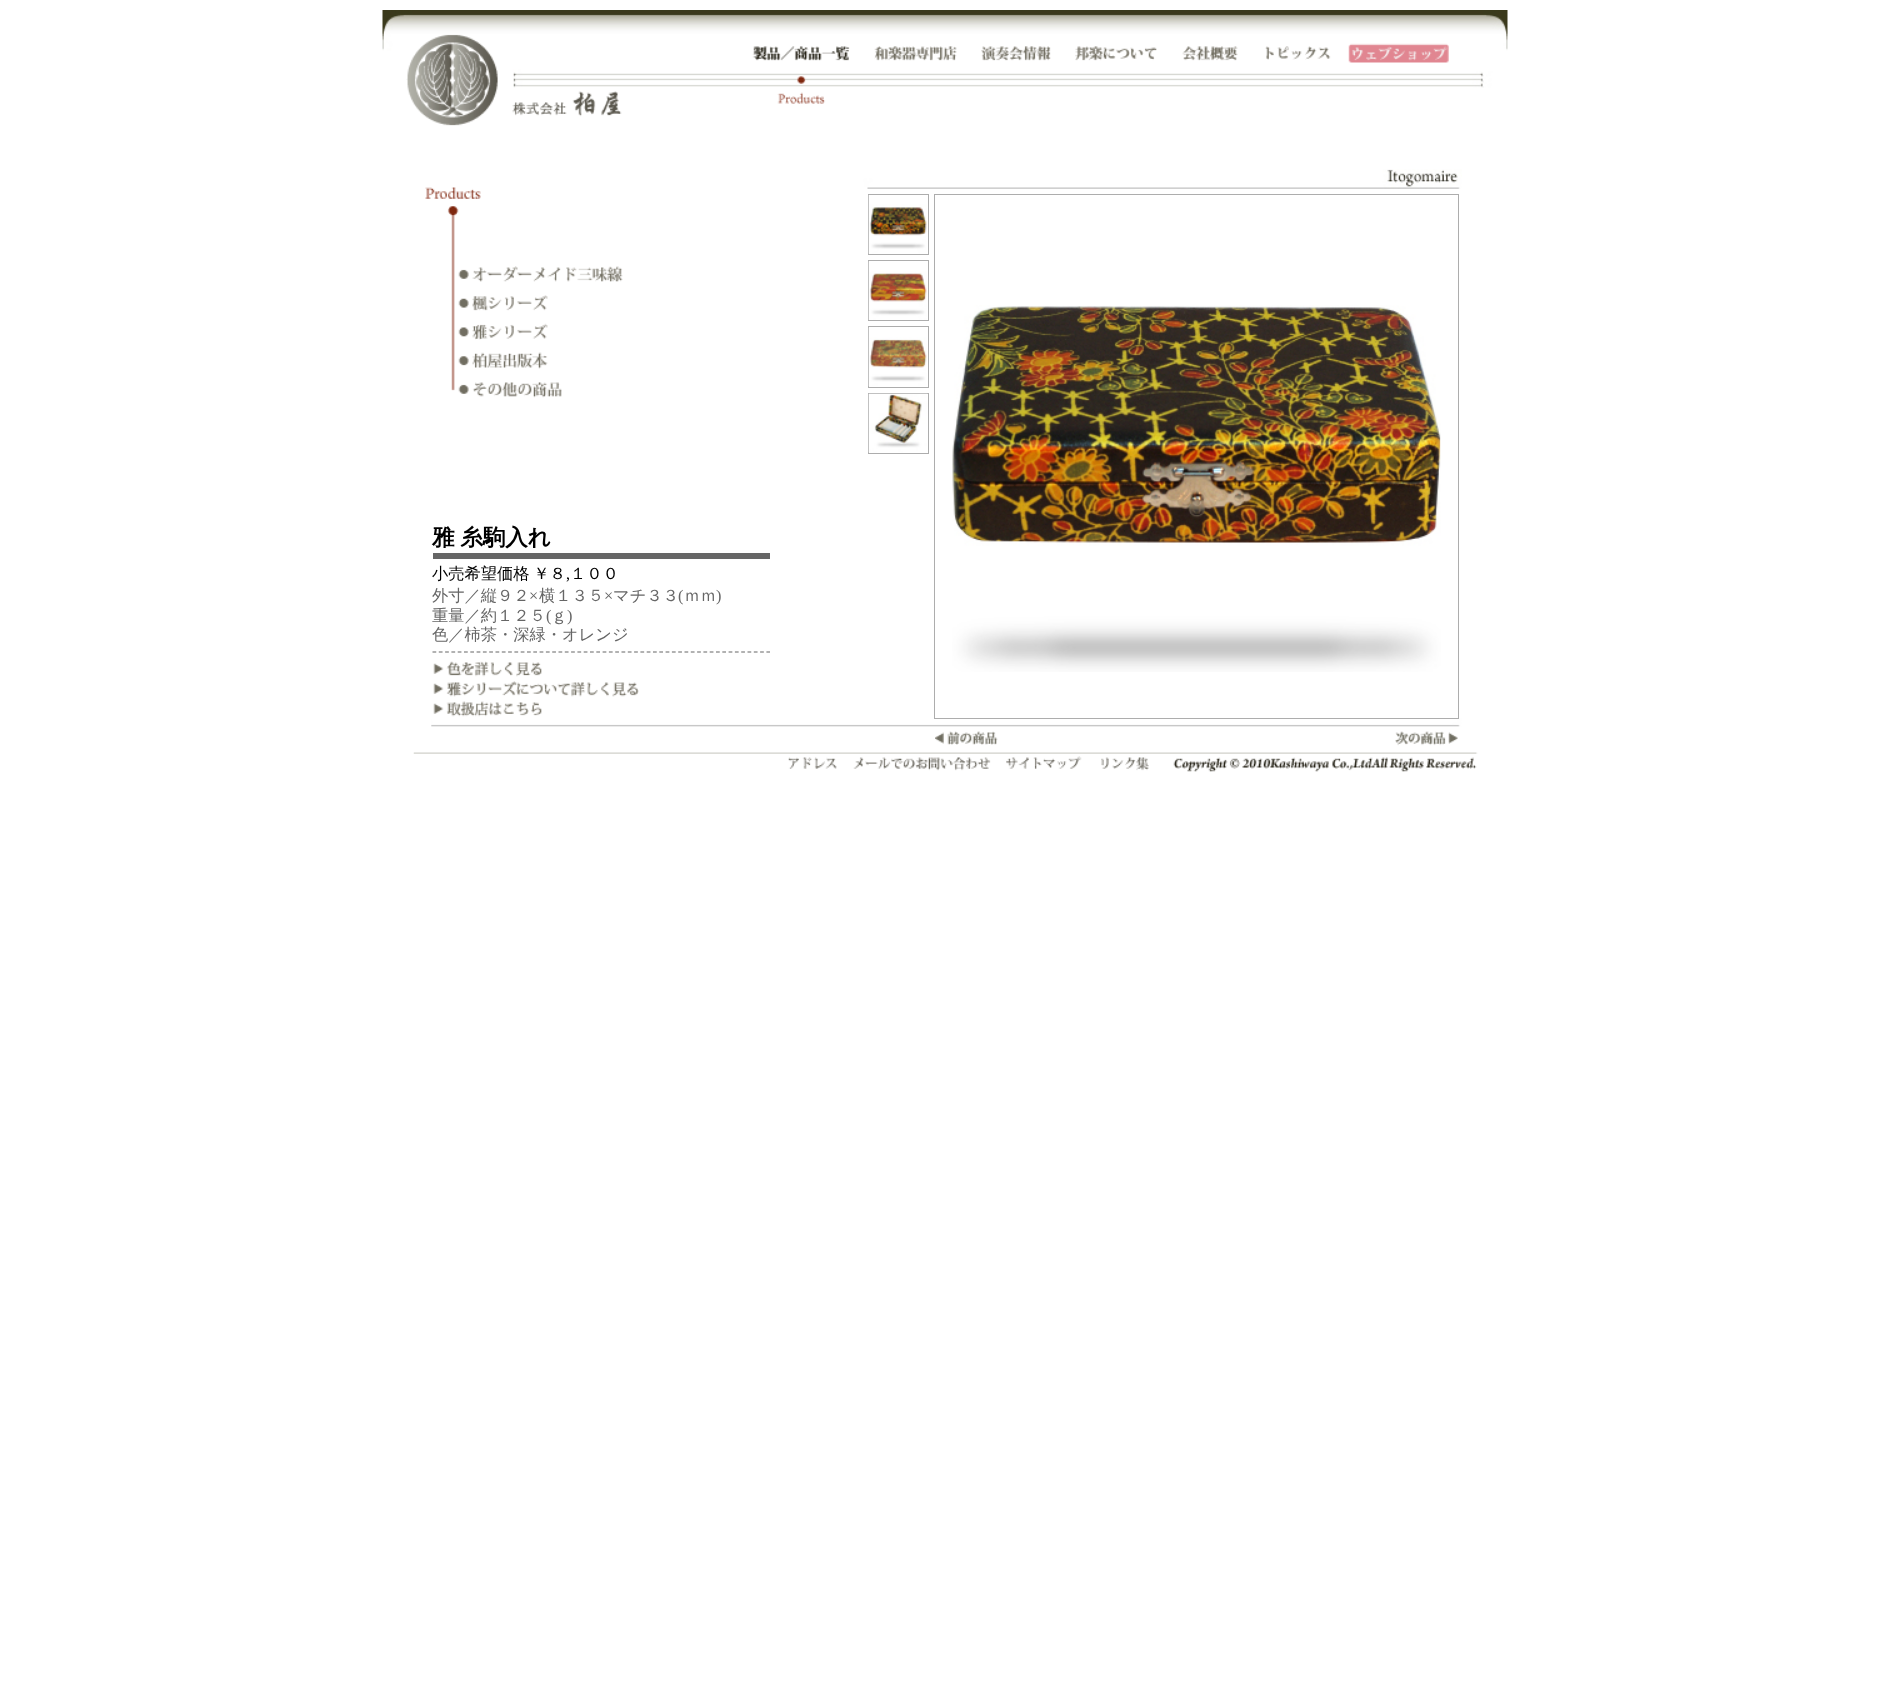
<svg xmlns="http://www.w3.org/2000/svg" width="1888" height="1691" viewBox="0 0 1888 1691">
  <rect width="100%" height="100%" fill="#ffffff"/>
  <image x="382" y="10" width="1126" height="78" href="img1.png"/>
  <image x="406" y="34" width="216" height="92" href="img2.png"/>
  <image x="752" y="46" width="98" height="58" href="img3.png"/>
  <image x="874" y="46" width="83" height="15" href="img4.png"/>
  <image x="981" y="46" width="70" height="15" href="img5.png"/>
  <image x="1075" y="46" width="82" height="15" href="img6.png"/>
  <image x="1182" y="46" width="56" height="15" href="img7.png"/>
  <image x="1265" y="46" width="66" height="14" href="img8.png"/>
  <image x="1348" y="43" width="101" height="20" href="img9.png"/>
  <image x="431" y="169" width="1031" height="558" href="img10.png"/>
  <image x="425" y="187" width="56" height="204" href="img11.png"/>
  <image x="458" y="266" width="165" height="16" href="img12.png"/>
  <image x="458" y="295" width="90" height="16" href="img13.png"/>
  <image x="458" y="323" width="90" height="17" href="img14.png"/>
  <image x="458" y="352" width="90" height="17" href="img15.png"/>
  <image x="458" y="382" width="104" height="16" href="img16.png"/>
  <text x="432" y="545" word-spacing="-1" font-family="WenQuanYi Zen Hei" font-size="22.5" font-weight="bold" fill="#000000">雅 糸駒入れ</text>
  <rect x="433" y="553" width="337" height="6" fill="#666666"/>
  <path d="M432.5 652H770" fill="none" stroke="#666666" stroke-width="1.2" stroke-dasharray="3.75 2.55"/>
  <text x="432" y="579" word-spacing="-1" font-family="WenQuanYi Zen Hei" font-size="16.25" font-weight="500" fill="#000000">小売希望価格 ￥８</text>
  <text x="566" y="579" font-family="Liberation Serif" font-size="16.25" fill="#000000">,</text>
  <text x="570" y="579" font-family="WenQuanYi Zen Hei" font-size="16.25" font-weight="500" fill="#000000">１００</text>
  <text x="432" y="601" font-family="WenQuanYi Zen Hei" font-size="16.25" font-weight="500" fill="#666666">外寸／縦９２</text>
  <text x="529" y="601" font-family="Liberation Serif" font-size="16.25" fill="#666666">×</text>
  <text x="539" y="601" font-family="WenQuanYi Zen Hei" font-size="16.25" font-weight="500" fill="#666666">横１３５</text>
  <text x="604" y="601" font-family="Liberation Serif" font-size="16.25" fill="#666666">×</text>
  <text x="613" y="601" font-family="WenQuanYi Zen Hei" font-size="16.25" font-weight="500" fill="#666666">マチ３３</text>
  <text x="678" y="601" font-family="Liberation Serif" font-size="16.25" fill="#666666">(</text>
  <text x="684" y="601" font-family="WenQuanYi Zen Hei" font-size="16.25" font-weight="500" fill="#666666">ｍｍ</text>
  <text x="716" y="601" font-family="Liberation Serif" font-size="16.25" fill="#666666">)</text>
  <text x="432" y="621" font-family="WenQuanYi Zen Hei" font-size="16.25" font-weight="500" fill="#666666">重量／約１２５</text>
  <text x="546" y="621" font-family="Liberation Serif" font-size="16.25" fill="#666666">(</text>
  <text x="551" y="621" font-family="WenQuanYi Zen Hei" font-size="16.25" font-weight="500" fill="#666666">ｇ</text>
  <text x="567" y="621" font-family="Liberation Serif" font-size="16.25" fill="#666666">)</text>
  <text x="432" y="640" font-family="WenQuanYi Zen Hei" font-size="16.25" font-weight="500" fill="#666666">色／柿茶・深緑・オレンジ</text>
  <image x="433" y="661" width="109" height="16" href="img17.png"/>
  <image x="433" y="681" width="206" height="16" href="img18.png"/>
  <image x="433" y="701" width="109" height="16" href="img19.png"/>
  <rect x="868.5" y="194.5" width="60" height="60" fill="none" stroke="#adadad"/>
  <image x="868" y="195" width="59" height="59" href="img20.png"/>
  <rect x="868.5" y="260.5" width="60" height="60" fill="none" stroke="#adadad"/>
  <image x="868" y="261" width="59" height="59" href="img21.png"/>
  <rect x="868.5" y="326.5" width="60" height="61" fill="none" stroke="#adadad"/>
  <image x="868" y="327" width="59" height="60" href="img22.png"/>
  <rect x="868.5" y="393.5" width="60" height="60" fill="none" stroke="#adadad"/>
  <image x="868" y="393" width="60" height="60" href="img23.png"/>
  <rect x="934.5" y="194.5" width="524" height="524" fill="none" stroke="#adadad"/>
  <image x="952" y="305" width="489" height="367" href="img24.png"/>
  <image x="935" y="731" width="63" height="14" href="img25.png"/>
  <image x="1395" y="731" width="63" height="15" href="img26.png"/>
  <image x="413" y="752" width="1065" height="20" href="img27.png"/>
  <image x="788" y="757" width="49" height="12" href="img28.png"/>
  <image x="853" y="757" width="138" height="14" href="img29.png"/>
  <image x="1006" y="756" width="76" height="13" href="img30.png"/>
  <image x="1101" y="757" width="48" height="14" href="img31.png"/>
</svg>
